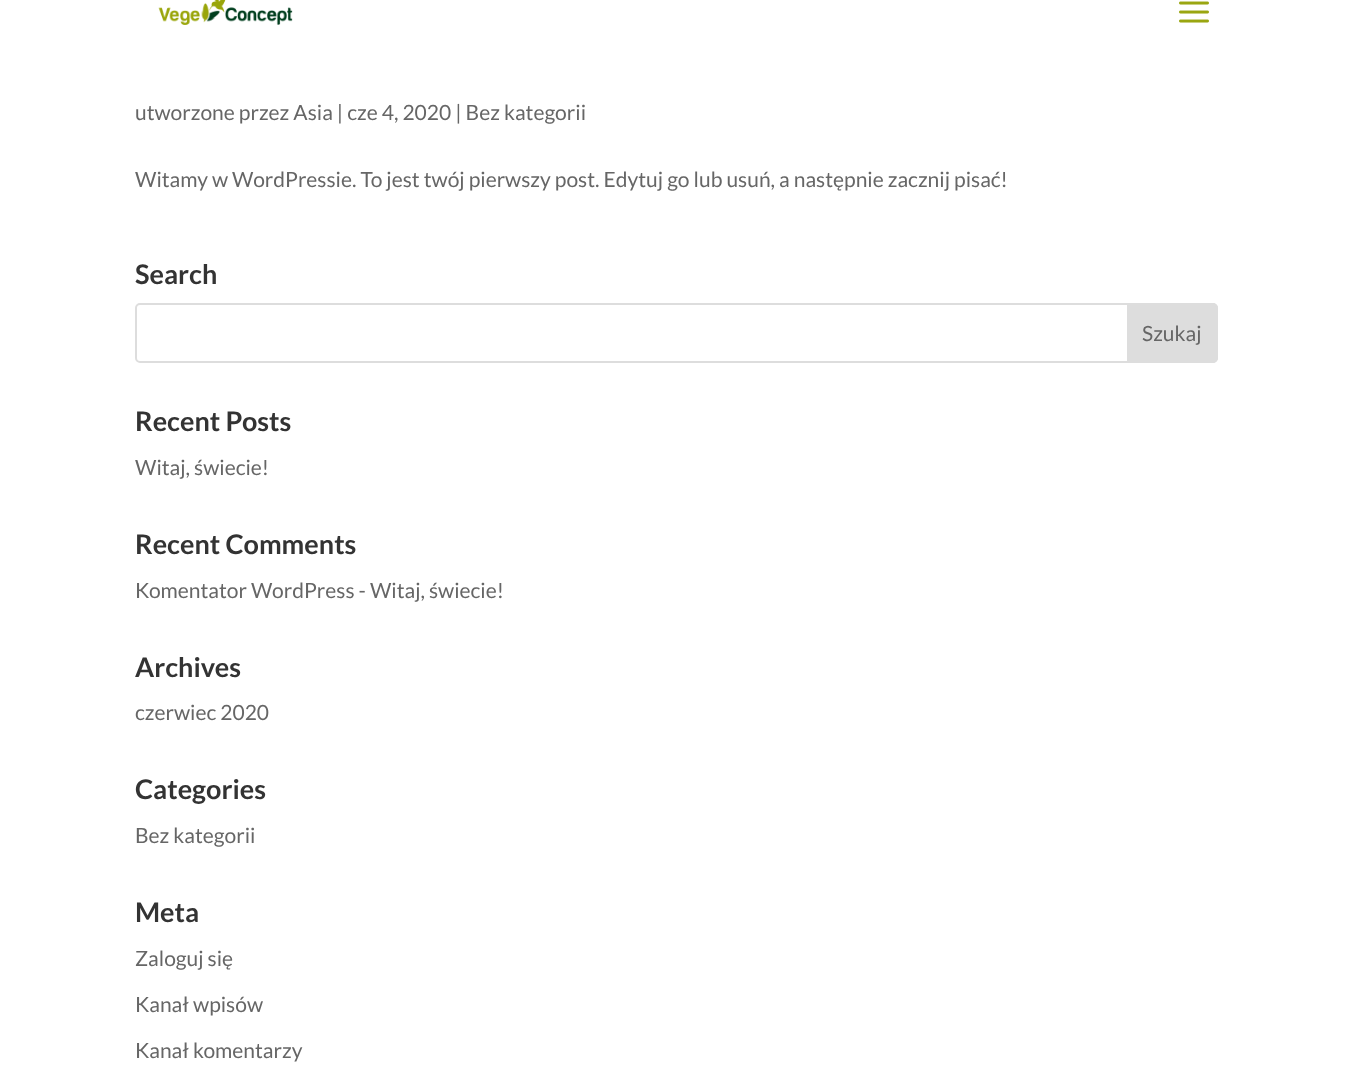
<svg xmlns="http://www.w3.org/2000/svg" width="1352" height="1091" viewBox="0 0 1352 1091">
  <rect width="100%" height="100%" fill="#ffffff"/>
  <image x="158" y="0" width="135" height="25" href="img1.png"/>
  <image x="1179" y="1" width="30" height="22" href="img2.png"/>
  <text x="135" y="120" font-family="Lato" font-size="21" fill="#666666">utworzone przez Asia | cze 4, 2020 | Bez kategorii</text>
  <text x="135" y="187" font-family="Lato" font-size="21" fill="#666666">Witamy w WordPressie. To jest twój pierwszy post. Edytuj go lub usuń, a następnie zacznij pisać!</text>
  <text x="135" y="284" font-family="Lato" font-size="27" font-weight="bold" fill="#333333">Search</text>
  <rect x="136" y="304" width="1081" height="58" rx="4" fill="none" stroke="#dddddd" stroke-width="2"/>
  <path d="M1128 304H1213C1215 304 1217 306 1217 308V358C1217 360 1215 362 1213 362H1128Z" fill="#dddddd" stroke="#dddddd" stroke-width="2"/>
  <text x="1142" y="341" font-family="Lato" font-size="21" fill="#666666">Szukaj</text>
  <text x="135" y="431" font-family="Lato" font-size="27" font-weight="bold" fill="#333333">Recent Posts</text>
  <text x="135" y="475" font-family="Lato" font-size="21" fill="#666666">Witaj, świecie!</text>
  <text x="135" y="554" font-family="Lato" font-size="27" font-weight="bold" fill="#333333">Recent Comments</text>
  <text x="135" y="598" font-family="Lato" font-size="21" fill="#666666">Komentator WordPress - Witaj, świecie!</text>
  <text x="135" y="677" font-family="Lato" font-size="27" font-weight="bold" fill="#333333">Archives</text>
  <text x="135" y="720" font-family="Lato" font-size="21" fill="#666666">czerwiec 2020</text>
  <text x="135" y="799" font-family="Lato" font-size="27" font-weight="bold" fill="#333333">Categories</text>
  <text x="135" y="843" font-family="Lato" font-size="21" fill="#666666">Bez kategorii</text>
  <text x="135" y="922" font-family="Lato" font-size="27" font-weight="bold" fill="#333333">Meta</text>
  <text x="135" y="966" font-family="Lato" font-size="21" fill="#666666">Zaloguj się</text>
  <text x="135" y="1012" font-family="Lato" font-size="21" fill="#666666">Kanał wpisów</text>
  <text x="135" y="1058" font-family="Lato" font-size="21" fill="#666666">Kanał komentarzy</text>
</svg>
